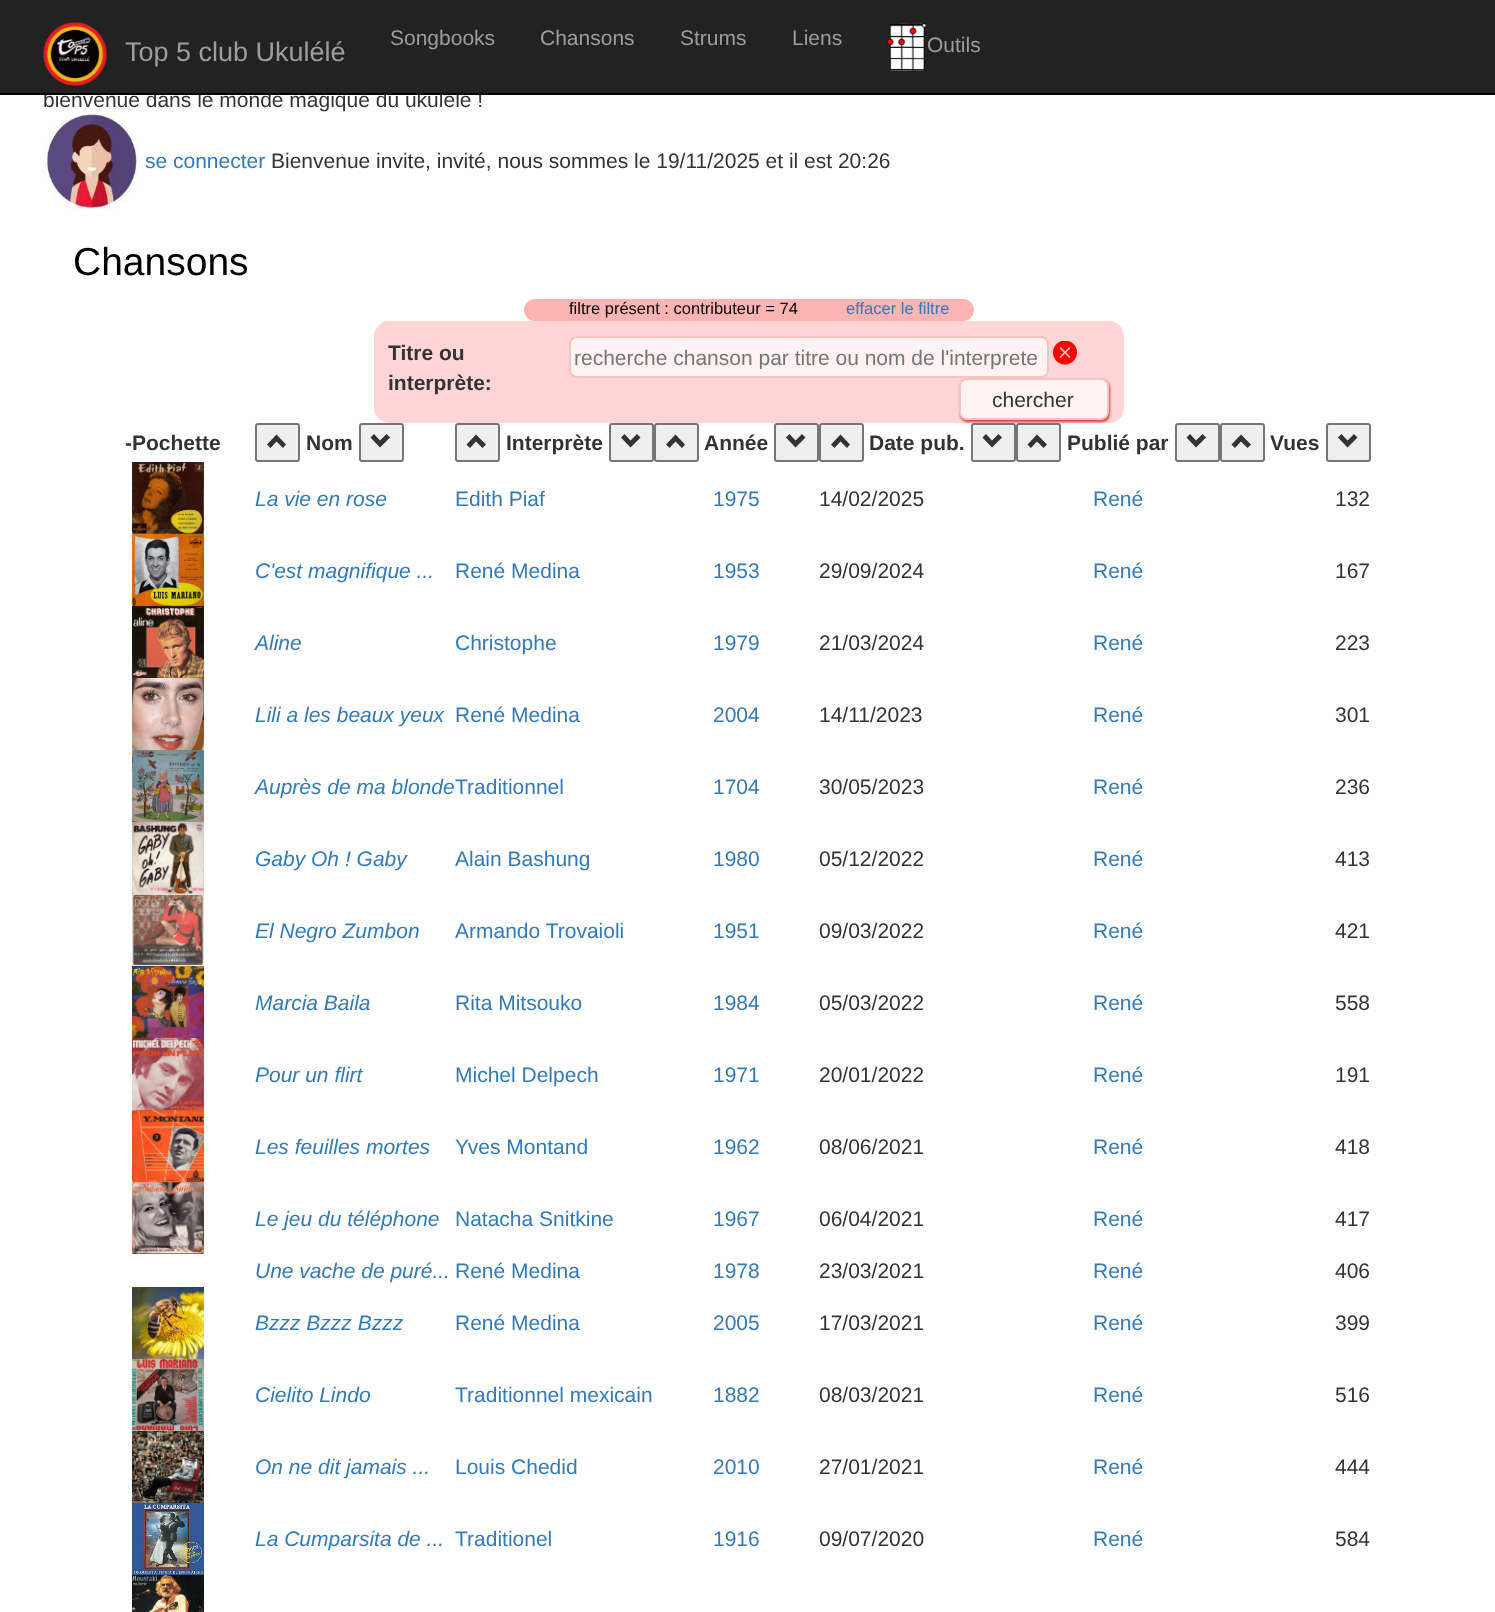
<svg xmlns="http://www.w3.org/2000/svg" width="1495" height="1612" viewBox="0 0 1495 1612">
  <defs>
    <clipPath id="clip1"><rect x="575" y="345" width="468" height="24"/></clipPath>
    <filter id="blur1" x="-50%" y="-200%" width="200%" height="500%"><feGaussianBlur stdDeviation="1"/></filter>
  </defs>
  <rect width="100%" height="100%" fill="#ffffff"/>
  <text x="43" y="107" font-family="Liberation Sans" font-size="21" fill="#333333">bienvenue dans le monde magique du ukulélé !</text>
  <rect x="0" y="0" width="1495" height="93" fill="#222222"/>
  <rect x="0" y="93" width="1495" height="2" fill="#080808"/>
  <image x="43" y="22" width="64" height="64" href="img1.png"/>
  <text x="125" y="61" font-family="Liberation Sans" font-size="27" fill="#9d9d9d">Top 5 club Ukulélé</text>
  <text x="390" y="45" font-family="Liberation Sans" font-size="21" fill="#9d9d9d">Songbooks</text>
  <text x="540" y="45" font-family="Liberation Sans" font-size="21" fill="#9d9d9d">Chansons</text>
  <text x="680" y="45" font-family="Liberation Sans" font-size="21" fill="#9d9d9d">Strums</text>
  <text x="792" y="45" font-family="Liberation Sans" font-size="21" fill="#9d9d9d">Liens</text>
  <image x="886" y="22" width="41" height="49" href="img2.png"/>
  <text x="927" y="52" font-family="Liberation Sans" font-size="21" fill="#9d9d9d">Outils</text>
  <image x="43" y="114" width="97" height="96" href="img3.png"/>
  <text x="145" y="168" font-family="Liberation Sans" font-size="21" fill="#337ab7">se connecter</text>
  <text x="271" y="168" font-family="Liberation Sans" font-size="21" fill="#333333">Bienvenue invite, invité, nous sommes le 19/11/2025 et il est 20:26</text>
  <text x="73" y="275" font-family="Liberation Sans" font-size="39" fill="#000000">Chansons</text>
  <rect x="524" y="299" width="450" height="22" rx="11" fill="#ffb4b4"/>
  <text x="569" y="314" font-family="Liberation Sans" font-size="16.5" fill="#000000">filtre présent : contributeur = 74</text>
  <text x="846" y="314" font-family="Liberation Sans" font-size="16.5" fill="#337ab7">effacer le filtre</text>
  <rect x="374" y="321" width="750" height="102" rx="15" fill="#ffd5d5"/>
  <text x="388" y="360" font-family="Liberation Sans" font-size="21" font-weight="bold" fill="#333333">Titre ou</text>
  <text x="388" y="390" font-family="Liberation Sans" font-size="21" font-weight="bold" fill="#333333">interprète:</text>
  <rect x="570" y="337" width="478" height="40" rx="7" fill="#fff3f3" stroke="#f5c5c5" stroke-width="2"/>
  <g clip-path="url(#clip1)">
    <text x="574" y="365" font-family="Liberation Sans" font-size="21" fill="#757575">recherche chanson par titre ou nom de l'interprete</text>
  </g>
  <image x="1053" y="341" width="24" height="24" href="img4.png"/>
  <rect x="972" y="424" width="43" height="37" rx="2" fill="#efefef" stroke="#767676" stroke-width="2"/>
  <rect x="1017" y="424" width="43" height="37" rx="2" fill="#efefef" stroke="#767676" stroke-width="2"/>
  <rect x="960" y="380" width="150" height="42" rx="8" fill="#d83f3d" filter="url(#blur1)"/>
  <rect x="960" y="379" width="148" height="40" rx="7" fill="#fff3f3" stroke="#f5c5c5" stroke-width="2"/>
  <text x="992" y="407" font-family="Liberation Sans" font-size="21" fill="#333333">chercher</text>
  <text x="125" y="450" font-family="Liberation Sans" font-size="21" font-weight="bold" fill="#333333">-Pochette</text>
  <rect x="256" y="424" width="43" height="37" rx="2" fill="#efefef" stroke="#767676" stroke-width="2"/>
  <path d="M286 444.5L283 448L276.5 441.5L270.5 448L267 444.5L276.5 434.5Z" fill="#333333"/>
  <text x="306" y="450" font-family="Liberation Sans" font-size="21" font-weight="bold" fill="#333333">Nom</text>
  <rect x="360" y="424" width="43" height="37" rx="2" fill="#efefef" stroke="#767676" stroke-width="2"/>
  <path d="M390 437.5L380 447.5L370.5 437.5L374 434L380 440.5L386.5 434Z" fill="#333333"/>
  <rect x="456" y="424" width="43" height="37" rx="2" fill="#efefef" stroke="#767676" stroke-width="2"/>
  <path d="M486 444.5L482.5 448L476 441.5L470 448L466.5 444.5L476 434.5Z" fill="#333333"/>
  <text x="506" y="450" font-family="Liberation Sans" font-size="21" font-weight="bold" fill="#333333">Interprète</text>
  <rect x="610" y="424" width="43" height="37" rx="2" fill="#efefef" stroke="#767676" stroke-width="2"/>
  <path d="M640.5 437.5L630.5 447.5L621 437.5L624.5 434L630.5 440.5L637 434Z" fill="#333333"/>
  <rect x="655" y="424" width="43" height="37" rx="2" fill="#efefef" stroke="#767676" stroke-width="2"/>
  <path d="M685 444.5L682 448L675.5 441.5L669.5 448L666 444.5L675.5 434.5Z" fill="#333333"/>
  <text x="704" y="450" font-family="Liberation Sans" font-size="21" font-weight="bold" fill="#333333">Année</text>
  <rect x="775" y="424" width="43" height="37" rx="2" fill="#efefef" stroke="#767676" stroke-width="2"/>
  <path d="M805.5 437.5L795.5 447.5L786 437.5L789.5 434L795.5 440.5L802 434Z" fill="#333333"/>
  <rect x="820" y="424" width="43" height="37" rx="2" fill="#efefef" stroke="#767676" stroke-width="2"/>
  <path d="M850 444.5L847 448L840.5 441.5L834.5 448L831 444.5L840.5 434.5Z" fill="#333333"/>
  <text x="869" y="450" font-family="Liberation Sans" font-size="21" font-weight="bold" fill="#333333">Date pub.</text>
  <path d="M1002 437.5L992 447.5L982.5 437.5L986 434L992 440.5L998.5 434Z" fill="#333333"/>
  <path d="M1047 444.5L1043.5 448L1037 441.5L1031 448L1027.5 444.5L1037 434.5Z" fill="#333333"/>
  <text x="1067" y="450" font-family="Liberation Sans" font-size="21" font-weight="bold" fill="#333333">Publié par</text>
  <rect x="1176" y="424" width="43" height="37" rx="2" fill="#efefef" stroke="#767676" stroke-width="2"/>
  <path d="M1206 437.5L1196 447.5L1186.5 437.5L1190 434L1196 440.5L1202.5 434Z" fill="#333333"/>
  <rect x="1221" y="424" width="43" height="37" rx="2" fill="#efefef" stroke="#767676" stroke-width="2"/>
  <path d="M1251 444.5L1247.5 448L1241 441.5L1235 448L1231.5 444.5L1241 434.5Z" fill="#333333"/>
  <text x="1270" y="450" font-family="Liberation Sans" font-size="21" font-weight="bold" fill="#333333">Vues</text>
  <rect x="1327" y="424" width="43" height="37" rx="2" fill="#efefef" stroke="#767676" stroke-width="2"/>
  <path d="M1357.5 437.5L1347.5 447.5L1338 437.5L1341.5 434L1347.5 440.5L1354 434Z" fill="#333333"/>
  <image x="132" y="462" width="72" height="72" href="img5.png"/>
  <text x="255" y="506" font-family="Liberation Sans" font-size="21" font-style="italic" fill="#337ab7">La vie en rose</text>
  <text x="455" y="506" font-family="Liberation Sans" font-size="21" fill="#337ab7">Edith Piaf</text>
  <text x="713" y="506" font-family="Liberation Sans" font-size="21" fill="#337ab7">1975</text>
  <text x="819" y="506" font-family="Liberation Sans" font-size="21" fill="#333333">14/02/2025</text>
  <text x="1093" y="506" font-family="Liberation Sans" font-size="21" fill="#337ab7">René</text>
  <text x="1335" y="506" font-family="Liberation Sans" font-size="21" fill="#333333">132</text>
  <image x="132" y="534" width="72" height="72" href="img6.png"/>
  <text x="255" y="578" font-family="Liberation Sans" font-size="21" font-style="italic" fill="#337ab7">C'est magnifique ...</text>
  <text x="455" y="578" font-family="Liberation Sans" font-size="21" fill="#337ab7">René Medina</text>
  <text x="713" y="578" font-family="Liberation Sans" font-size="21" fill="#337ab7">1953</text>
  <text x="819" y="578" font-family="Liberation Sans" font-size="21" fill="#333333">29/09/2024</text>
  <text x="1093" y="578" font-family="Liberation Sans" font-size="21" fill="#337ab7">René</text>
  <text x="1335" y="578" font-family="Liberation Sans" font-size="21" fill="#333333">167</text>
  <image x="132" y="606" width="72" height="72" href="img7.png"/>
  <text x="255" y="650" font-family="Liberation Sans" font-size="21" font-style="italic" fill="#337ab7">Aline</text>
  <text x="455" y="650" font-family="Liberation Sans" font-size="21" fill="#337ab7">Christophe</text>
  <text x="713" y="650" font-family="Liberation Sans" font-size="21" fill="#337ab7">1979</text>
  <text x="819" y="650" font-family="Liberation Sans" font-size="21" fill="#333333">21/03/2024</text>
  <text x="1093" y="650" font-family="Liberation Sans" font-size="21" fill="#337ab7">René</text>
  <text x="1335" y="650" font-family="Liberation Sans" font-size="21" fill="#333333">223</text>
  <image x="132" y="678" width="72" height="72" href="img8.png"/>
  <text x="255" y="722" font-family="Liberation Sans" font-size="21" font-style="italic" fill="#337ab7">Lili a les beaux yeux</text>
  <text x="455" y="722" font-family="Liberation Sans" font-size="21" fill="#337ab7">René Medina</text>
  <text x="713" y="722" font-family="Liberation Sans" font-size="21" fill="#337ab7">2004</text>
  <text x="819" y="722" font-family="Liberation Sans" font-size="21" fill="#333333">14/11/2023</text>
  <text x="1093" y="722" font-family="Liberation Sans" font-size="21" fill="#337ab7">René</text>
  <text x="1335" y="722" font-family="Liberation Sans" font-size="21" fill="#333333">301</text>
  <image x="132" y="750" width="72" height="72" href="img9.png"/>
  <text x="255" y="794" font-family="Liberation Sans" font-size="21" font-style="italic" fill="#337ab7">Auprès de ma blonde</text>
  <text x="455" y="794" font-family="Liberation Sans" font-size="21" fill="#337ab7">Traditionnel</text>
  <text x="713" y="794" font-family="Liberation Sans" font-size="21" fill="#337ab7">1704</text>
  <text x="819" y="794" font-family="Liberation Sans" font-size="21" fill="#333333">30/05/2023</text>
  <text x="1093" y="794" font-family="Liberation Sans" font-size="21" fill="#337ab7">René</text>
  <text x="1335" y="794" font-family="Liberation Sans" font-size="21" fill="#333333">236</text>
  <image x="132" y="822" width="72" height="72" href="img10.png"/>
  <text x="255" y="866" font-family="Liberation Sans" font-size="21" font-style="italic" fill="#337ab7">Gaby Oh ! Gaby</text>
  <text x="455" y="866" font-family="Liberation Sans" font-size="21" fill="#337ab7">Alain Bashung</text>
  <text x="713" y="866" font-family="Liberation Sans" font-size="21" fill="#337ab7">1980</text>
  <text x="819" y="866" font-family="Liberation Sans" font-size="21" fill="#333333">05/12/2022</text>
  <text x="1093" y="866" font-family="Liberation Sans" font-size="21" fill="#337ab7">René</text>
  <text x="1335" y="866" font-family="Liberation Sans" font-size="21" fill="#333333">413</text>
  <image x="132" y="894" width="72" height="72" href="img11.png"/>
  <text x="255" y="938" font-family="Liberation Sans" font-size="21" font-style="italic" fill="#337ab7">El Negro Zumbon</text>
  <text x="455" y="938" font-family="Liberation Sans" font-size="21" fill="#337ab7">Armando Trovaioli</text>
  <text x="713" y="938" font-family="Liberation Sans" font-size="21" fill="#337ab7">1951</text>
  <text x="819" y="938" font-family="Liberation Sans" font-size="21" fill="#333333">09/03/2022</text>
  <text x="1093" y="938" font-family="Liberation Sans" font-size="21" fill="#337ab7">René</text>
  <text x="1335" y="938" font-family="Liberation Sans" font-size="21" fill="#333333">421</text>
  <image x="132" y="966" width="72" height="72" href="img12.png"/>
  <text x="255" y="1010" font-family="Liberation Sans" font-size="21" font-style="italic" fill="#337ab7">Marcia Baila</text>
  <text x="455" y="1010" font-family="Liberation Sans" font-size="21" fill="#337ab7">Rita Mitsouko</text>
  <text x="713" y="1010" font-family="Liberation Sans" font-size="21" fill="#337ab7">1984</text>
  <text x="819" y="1010" font-family="Liberation Sans" font-size="21" fill="#333333">05/03/2022</text>
  <text x="1093" y="1010" font-family="Liberation Sans" font-size="21" fill="#337ab7">René</text>
  <text x="1335" y="1010" font-family="Liberation Sans" font-size="21" fill="#333333">558</text>
  <image x="132" y="1038" width="72" height="72" href="img13.png"/>
  <text x="255" y="1082" font-family="Liberation Sans" font-size="21" font-style="italic" fill="#337ab7">Pour un flirt</text>
  <text x="455" y="1082" font-family="Liberation Sans" font-size="21" fill="#337ab7">Michel Delpech</text>
  <text x="713" y="1082" font-family="Liberation Sans" font-size="21" fill="#337ab7">1971</text>
  <text x="819" y="1082" font-family="Liberation Sans" font-size="21" fill="#333333">20/01/2022</text>
  <text x="1093" y="1082" font-family="Liberation Sans" font-size="21" fill="#337ab7">René</text>
  <text x="1335" y="1082" font-family="Liberation Sans" font-size="21" fill="#333333">191</text>
  <image x="132" y="1110" width="72" height="72" href="img14.png"/>
  <text x="255" y="1154" font-family="Liberation Sans" font-size="21" font-style="italic" fill="#337ab7">Les feuilles mortes</text>
  <text x="455" y="1154" font-family="Liberation Sans" font-size="21" fill="#337ab7">Yves Montand</text>
  <text x="713" y="1154" font-family="Liberation Sans" font-size="21" fill="#337ab7">1962</text>
  <text x="819" y="1154" font-family="Liberation Sans" font-size="21" fill="#333333">08/06/2021</text>
  <text x="1093" y="1154" font-family="Liberation Sans" font-size="21" fill="#337ab7">René</text>
  <text x="1335" y="1154" font-family="Liberation Sans" font-size="21" fill="#333333">418</text>
  <image x="132" y="1182" width="72" height="72" href="img15.png"/>
  <text x="255" y="1226" font-family="Liberation Sans" font-size="21" font-style="italic" fill="#337ab7">Le jeu du téléphone</text>
  <text x="455" y="1226" font-family="Liberation Sans" font-size="21" fill="#337ab7">Natacha Snitkine</text>
  <text x="713" y="1226" font-family="Liberation Sans" font-size="21" fill="#337ab7">1967</text>
  <text x="819" y="1226" font-family="Liberation Sans" font-size="21" fill="#333333">06/04/2021</text>
  <text x="1093" y="1226" font-family="Liberation Sans" font-size="21" fill="#337ab7">René</text>
  <text x="1335" y="1226" font-family="Liberation Sans" font-size="21" fill="#333333">417</text>
  <text x="255" y="1278" font-family="Liberation Sans" font-size="21" font-style="italic" fill="#337ab7">Une vache de puré...</text>
  <text x="455" y="1278" font-family="Liberation Sans" font-size="21" fill="#337ab7">René Medina</text>
  <text x="713" y="1278" font-family="Liberation Sans" font-size="21" fill="#337ab7">1978</text>
  <text x="819" y="1278" font-family="Liberation Sans" font-size="21" fill="#333333">23/03/2021</text>
  <text x="1093" y="1278" font-family="Liberation Sans" font-size="21" fill="#337ab7">René</text>
  <text x="1335" y="1278" font-family="Liberation Sans" font-size="21" fill="#333333">406</text>
  <image x="132" y="1287" width="72" height="72" href="img16.png"/>
  <text x="255" y="1330" font-family="Liberation Sans" font-size="21" font-style="italic" fill="#337ab7">Bzzz Bzzz Bzzz</text>
  <text x="455" y="1330" font-family="Liberation Sans" font-size="21" fill="#337ab7">René Medina</text>
  <text x="713" y="1330" font-family="Liberation Sans" font-size="21" fill="#337ab7">2005</text>
  <text x="819" y="1330" font-family="Liberation Sans" font-size="21" fill="#333333">17/03/2021</text>
  <text x="1093" y="1330" font-family="Liberation Sans" font-size="21" fill="#337ab7">René</text>
  <text x="1335" y="1330" font-family="Liberation Sans" font-size="21" fill="#333333">399</text>
  <image x="132" y="1359" width="72" height="72" href="img17.png"/>
  <text x="255" y="1402" font-family="Liberation Sans" font-size="21" font-style="italic" fill="#337ab7">Cielito Lindo</text>
  <text x="455" y="1402" font-family="Liberation Sans" font-size="21" fill="#337ab7">Traditionnel mexicain</text>
  <text x="713" y="1402" font-family="Liberation Sans" font-size="21" fill="#337ab7">1882</text>
  <text x="819" y="1402" font-family="Liberation Sans" font-size="21" fill="#333333">08/03/2021</text>
  <text x="1093" y="1402" font-family="Liberation Sans" font-size="21" fill="#337ab7">René</text>
  <text x="1335" y="1402" font-family="Liberation Sans" font-size="21" fill="#333333">516</text>
  <image x="132" y="1431" width="72" height="72" href="img18.png"/>
  <text x="255" y="1474" font-family="Liberation Sans" font-size="21" font-style="italic" fill="#337ab7">On ne dit jamais ...</text>
  <text x="455" y="1474" font-family="Liberation Sans" font-size="21" fill="#337ab7">Louis Chedid</text>
  <text x="713" y="1474" font-family="Liberation Sans" font-size="21" fill="#337ab7">2010</text>
  <text x="819" y="1474" font-family="Liberation Sans" font-size="21" fill="#333333">27/01/2021</text>
  <text x="1093" y="1474" font-family="Liberation Sans" font-size="21" fill="#337ab7">René</text>
  <text x="1335" y="1474" font-family="Liberation Sans" font-size="21" fill="#333333">444</text>
  <image x="132" y="1503" width="72" height="72" href="img19.png"/>
  <text x="255" y="1546" font-family="Liberation Sans" font-size="21" font-style="italic" fill="#337ab7">La Cumparsita de ...</text>
  <text x="455" y="1546" font-family="Liberation Sans" font-size="21" fill="#337ab7">Traditionel</text>
  <text x="713" y="1546" font-family="Liberation Sans" font-size="21" fill="#337ab7">1916</text>
  <text x="819" y="1546" font-family="Liberation Sans" font-size="21" fill="#333333">09/07/2020</text>
  <text x="1093" y="1546" font-family="Liberation Sans" font-size="21" fill="#337ab7">René</text>
  <text x="1335" y="1546" font-family="Liberation Sans" font-size="21" fill="#333333">584</text>
  <image x="132" y="1575" width="72" height="37" href="img20.png"/>
</svg>
